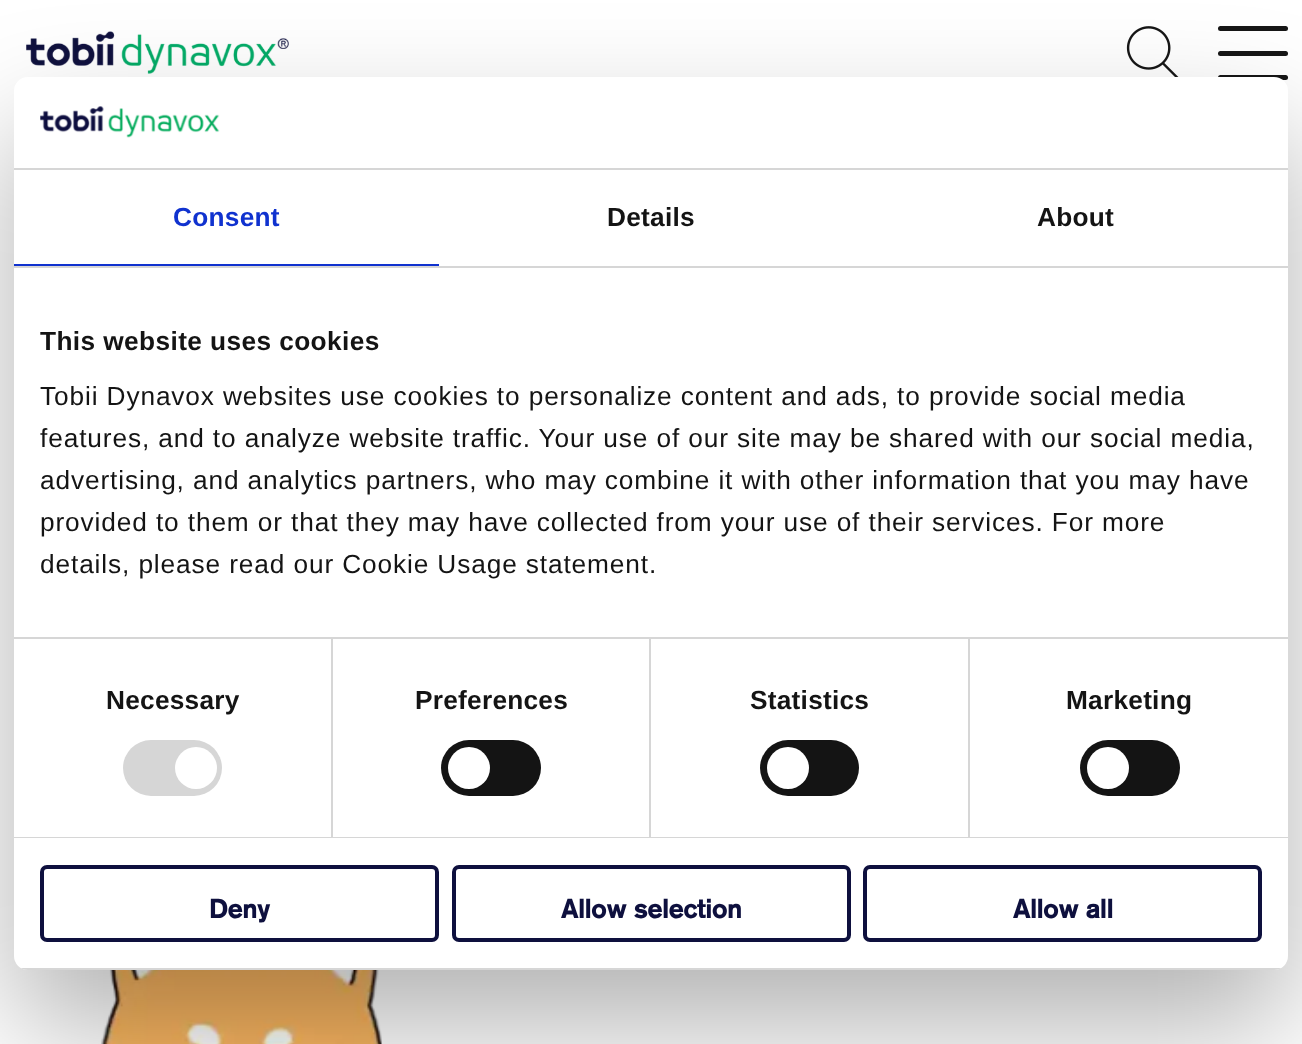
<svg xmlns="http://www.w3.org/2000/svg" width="1302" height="1044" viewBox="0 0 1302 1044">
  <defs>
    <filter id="blur1" x="-50%" y="-200%" width="200%" height="500%"><feGaussianBlur stdDeviation="59.5"/></filter>
    <clipPath id="clip1"><rect x="14" y="77" width="1274" height="893" rx="14"/></clipPath>
  </defs>
  <rect width="100%" height="100%" fill="#ffffff"/>
  <image x="26" y="31" width="263" height="43" href="img1.png"/>
  <image x="1126" y="26" width="53" height="51" href="img2.png"/>
  <rect x="1218" y="26" width="70" height="5" rx="2.5" fill="#161616"/>
  <rect x="1218" y="51" width="70" height="5" rx="2.5" fill="#161616"/>
  <rect x="1218" y="75" width="70" height="5" rx="2.5" fill="#161616"/>
  <image x="101" y="970" width="281" height="74" href="img4.png"/>
  <rect x="14" y="133" width="1274" height="893" rx="14" fill="#000000" fill-opacity="0.3" filter="url(#blur1)"/>
  <rect x="14" y="77" width="1274" height="893" rx="14" fill="#ffffff"/>
  <rect x="14" y="168" width="1274" height="2" fill="#d6d6d6"/>
  <image x="40" y="106" width="180" height="32" href="img3.png"/>
  <rect x="14" y="266" width="1274" height="2" fill="#d6d6d6"/>
  <rect x="14" y="264" width="425" height="2" fill="#1032cf"/>
  <text x="173" y="226" font-family="Liberation Sans" font-size="26.25" font-weight="bold" letter-spacing="0.25" fill="#1032cf">Consent</text>
  <text x="607" y="226" font-family="Liberation Sans" font-size="26.25" font-weight="bold" letter-spacing="0.25" fill="#141414">Details</text>
  <text x="1037" y="226" font-family="Liberation Sans" font-size="26.25" font-weight="bold" letter-spacing="0.25" fill="#141414">About</text>
  <rect x="14" y="637" width="1274" height="2" fill="#d6d6d6"/>
  <text x="40" y="350" font-family="Liberation Sans" font-size="26.25" font-weight="bold" letter-spacing="0.4" fill="#141414">This website uses cookies</text>
  <text x="40" y="405" font-family="Liberation Sans" font-size="26.25" letter-spacing="0.88" fill="#141414">Tobii Dynavox websites use cookies to personalize content and ads, to provide social media</text>
  <text x="40" y="447" font-family="Liberation Sans" font-size="26.25" letter-spacing="0.88" fill="#141414">features, and to analyze website traffic. Your use of our site may be shared with our social media,</text>
  <text x="40" y="489" font-family="Liberation Sans" font-size="26.25" letter-spacing="0.88" fill="#141414">advertising, and analytics partners, who may combine it with other information that you may have</text>
  <text x="40" y="531" font-family="Liberation Sans" font-size="26.25" letter-spacing="0.88" fill="#141414">provided to them or that they may have collected from your use of their services. For more</text>
  <text x="40" y="573" font-family="Liberation Sans" font-size="26.25" letter-spacing="0.88" fill="#141414">details, please read our Cookie Usage statement.</text>
  <rect x="14" y="837" width="1274" height="1" fill="#d6d6d6"/>
  <rect x="331" y="639" width="2" height="198" fill="#d6d6d6"/>
  <text x="106" y="709" font-family="Liberation Sans" font-size="26.25" font-weight="bold" letter-spacing="0.25" fill="#141414">Necessary</text>
  <rect x="123" y="740" width="99" height="56" rx="28" fill="#d6d6d6"/>
  <circle cx="196" cy="768" r="21" fill="#ffffff"/>
  <rect x="649" y="639" width="2" height="198" fill="#d6d6d6"/>
  <text x="415" y="709" font-family="Liberation Sans" font-size="26.25" font-weight="bold" letter-spacing="0.25" fill="#141414">Preferences</text>
  <rect x="441" y="740" width="100" height="56" rx="28" fill="#141414"/>
  <circle cx="469" cy="768" r="21" fill="#ffffff"/>
  <rect x="968" y="639" width="2" height="198" fill="#d6d6d6"/>
  <text x="750" y="709" font-family="Liberation Sans" font-size="26.25" font-weight="bold" letter-spacing="0.25" fill="#141414">Statistics</text>
  <rect x="760" y="740" width="99" height="56" rx="28" fill="#141414"/>
  <circle cx="788" cy="768" r="21" fill="#ffffff"/>
  <text x="1066" y="709" font-family="Liberation Sans" font-size="26.25" font-weight="bold" letter-spacing="0.25" fill="#141414">Marketing</text>
  <rect x="1080" y="740" width="100" height="56" rx="28" fill="#141414"/>
  <circle cx="1108" cy="768" r="21" fill="#ffffff"/>
  <g clip-path="url(#clip1)">
    <rect x="14" y="968" width="1274" height="2" fill="#d6d6d6"/>
  </g>
  <rect x="42" y="867" width="395" height="73" rx="5" fill="none" stroke="#0e103e" stroke-width="4"/>
  <text x="209" y="918" font-family="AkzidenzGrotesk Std" font-size="26.25" font-weight="bold" fill="#0e103e">Deny</text>
  <rect x="454" y="867" width="395" height="73" rx="5" fill="none" stroke="#0e103e" stroke-width="4"/>
  <text x="561" y="918" font-family="AkzidenzGrotesk Std" font-size="26.25" font-weight="bold" fill="#0e103e">Allow selection</text>
  <rect x="865" y="867" width="395" height="73" rx="5" fill="none" stroke="#0e103e" stroke-width="4"/>
  <text x="1013" y="918" font-family="AkzidenzGrotesk Std" font-size="26.25" font-weight="bold" fill="#0e103e">Allow all</text>
</svg>
